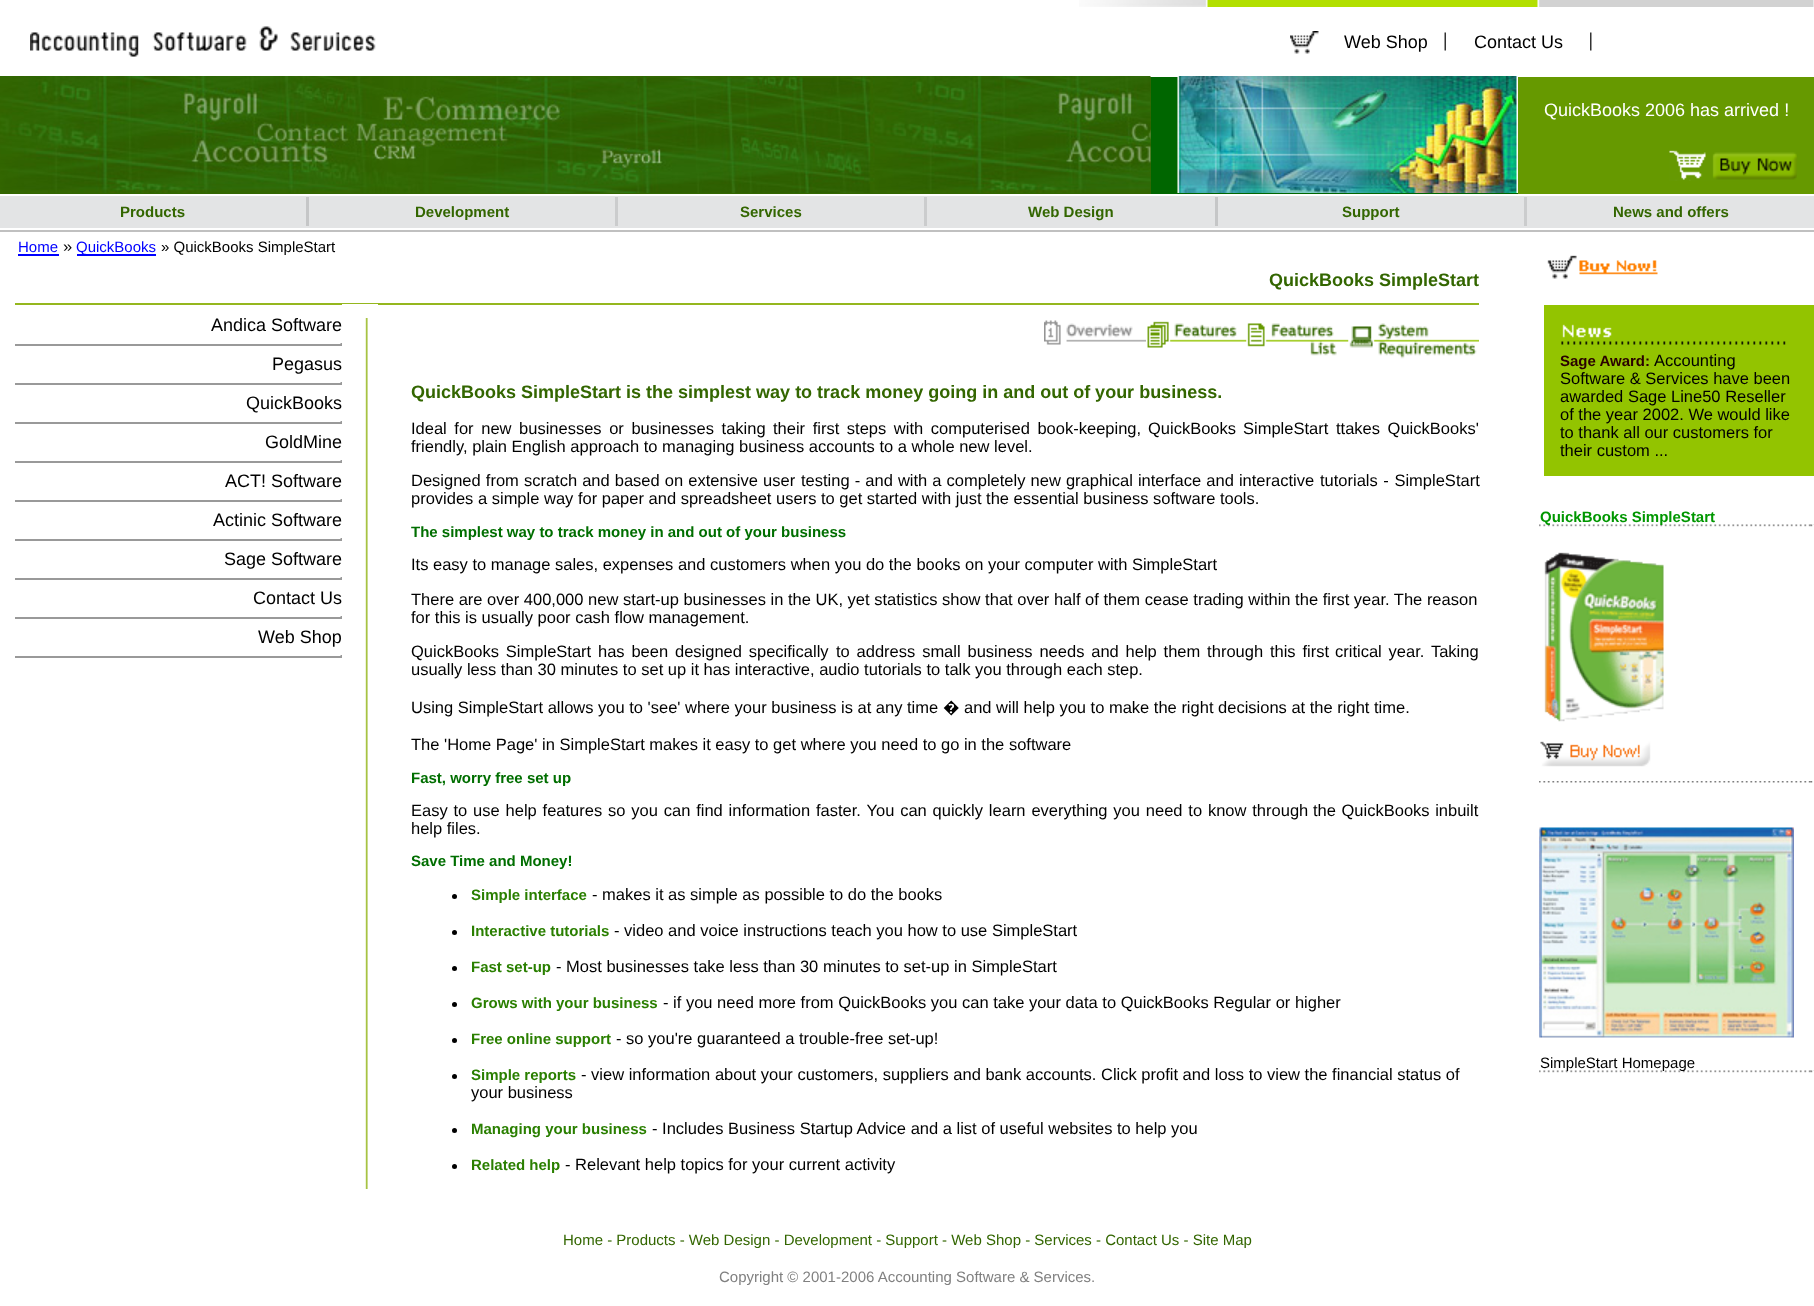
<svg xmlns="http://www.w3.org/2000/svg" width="1814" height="1306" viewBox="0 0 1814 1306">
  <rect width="100%" height="100%" fill="#ffffff"/>
  <image x="1079" y="0" width="735" height="7" href="img1.png"/>
  <image x="30" y="26" width="346" height="31" href="img2.png"/>
  <image x="1290" y="31" width="29" height="23" href="img3.png"/>
  <text x="1344" y="48" font-family="Liberation Sans" font-size="18" fill="#000000">Web Shop</text>
  <image x="1444" y="32" width="2" height="19" href="img4.png"/>
  <text x="1474" y="48" font-family="Liberation Sans" font-size="18" fill="#000000">Contact Us</text>
  <image x="1590" y="32" width="2" height="19" href="img5.png"/>
  <rect x="0" y="77" width="1151" height="117" fill="#336600"/>
  <image x="0" y="76" width="1151" height="117" href="img6.png"/>
  <rect x="1151" y="77" width="367" height="117" fill="#006600"/>
  <image x="1177" y="76" width="341" height="117" href="img7.png"/>
  <rect x="1518" y="77" width="296" height="117" fill="#669900"/>
  <text x="1544" y="116" font-family="Liberation Sans" font-size="18" fill="#ffffff">QuickBooks 2006 has arrived !</text>
  <image x="1669" y="150" width="128" height="31" href="img8.png"/>
  <rect x="0" y="196" width="1814" height="32" fill="#e3e4e5"/>
  <text x="120" y="217" font-family="Liberation Sans" font-size="15" font-weight="bold" fill="#336600">Products</text>
  <rect x="306" y="197" width="3" height="29" fill="#c5c6c7"/>
  <text x="415" y="217" font-family="Liberation Sans" font-size="15" font-weight="bold" fill="#336600">Development</text>
  <rect x="615" y="197" width="3" height="29" fill="#cbcccd"/>
  <text x="740" y="217" font-family="Liberation Sans" font-size="15" font-weight="bold" fill="#336600">Services</text>
  <rect x="924" y="197" width="3" height="29" fill="#cbcccd"/>
  <text x="1028" y="217" font-family="Liberation Sans" font-size="15" font-weight="bold" fill="#336600">Web Design</text>
  <rect x="1215" y="197" width="3" height="29" fill="#c5c6c7"/>
  <text x="1342" y="217" font-family="Liberation Sans" font-size="15" font-weight="bold" fill="#336600">Support</text>
  <rect x="1524" y="197" width="3" height="29" fill="#cbcccd"/>
  <text x="1613" y="217" font-family="Liberation Sans" font-size="15" font-weight="bold" fill="#336600">News and offers</text>
  <rect x="0" y="230" width="1814" height="2" fill="#c0c0c0"/>
  <text x="18" y="252" font-family="Liberation Sans" font-size="15" fill="#0000ff">Home</text>
  <rect x="18" y="254" width="41" height="2" fill="#0000ff"/>
  <text x="63" y="252" font-family="Liberation Sans" font-size="16.5" fill="#000000">»</text>
  <rect x="77" y="254" width="79" height="2" fill="#0000ff"/>
  <text x="76" y="252" font-family="Liberation Sans" font-size="15" fill="#0000ff">QuickBooks</text>
  <text x="161" y="252" font-family="Liberation Sans" font-size="15" fill="#000000">» QuickBooks SimpleStart</text>
  <text x="1269" y="286" font-family="Liberation Sans" font-size="18" font-weight="bold" fill="#336600">QuickBooks SimpleStart</text>
  <image x="1547" y="255" width="111" height="24" href="img9.png"/>
  <rect x="15" y="303" width="1464" height="2" fill="#95b71e"/>
  <text x="211" y="331" font-family="Liberation Sans" font-size="18" fill="#000000">Andica Software</text>
  <rect x="15" y="344" width="327" height="2" fill="#999999"/>
  <image x="340" y="343" width="2" height="1" href="img10.png"/>
  <text x="272" y="370" font-family="Liberation Sans" font-size="18" fill="#000000">Pegasus</text>
  <rect x="15" y="383" width="327" height="2" fill="#999999"/>
  <image x="340" y="382" width="2" height="1" href="img10.png"/>
  <text x="246" y="409" font-family="Liberation Sans" font-size="18" fill="#000000">QuickBooks</text>
  <rect x="15" y="422" width="327" height="2" fill="#999999"/>
  <image x="340" y="421" width="2" height="1" href="img10.png"/>
  <text x="265" y="448" font-family="Liberation Sans" font-size="18" fill="#000000">GoldMine</text>
  <rect x="15" y="461" width="327" height="2" fill="#999999"/>
  <image x="340" y="460" width="2" height="1" href="img10.png"/>
  <text x="225" y="487" font-family="Liberation Sans" font-size="18" fill="#000000">ACT! Software</text>
  <rect x="15" y="500" width="327" height="2" fill="#999999"/>
  <image x="340" y="499" width="2" height="1" href="img10.png"/>
  <text x="213" y="526" font-family="Liberation Sans" font-size="18" fill="#000000">Actinic Software</text>
  <rect x="15" y="539" width="327" height="2" fill="#999999"/>
  <image x="340" y="538" width="2" height="1" href="img10.png"/>
  <text x="224" y="565" font-family="Liberation Sans" font-size="18" fill="#000000">Sage Software</text>
  <rect x="15" y="578" width="327" height="2" fill="#999999"/>
  <image x="340" y="577" width="2" height="1" href="img10.png"/>
  <text x="253" y="604" font-family="Liberation Sans" font-size="18" fill="#000000">Contact Us</text>
  <rect x="15" y="617" width="327" height="2" fill="#999999"/>
  <image x="340" y="616" width="2" height="1" href="img10.png"/>
  <text x="258" y="643" font-family="Liberation Sans" font-size="18" fill="#000000">Web Shop</text>
  <rect x="15" y="656" width="327" height="2" fill="#999999"/>
  <image x="340" y="655" width="2" height="1" href="img10.png"/>
  <image x="342" y="304" width="36" height="885" href="img11.png"/>
  <rect x="365" y="304" width="3" height="14" fill="#ffffff"/>
  <image x="1044" y="320" width="102" height="25" href="img12.png"/>
  <image x="1147" y="321" width="100" height="27" href="img13.png"/>
  <image x="1246" y="323" width="103" height="33" href="img14.png"/>
  <image x="1348" y="323" width="131" height="36" href="img15.png"/>
  <text x="411" y="398" font-family="Liberation Sans" font-size="18" font-weight="bold" fill="#336600">QuickBooks SimpleStart is the simplest way to track money going in and out of your business.</text>
  <text x="411" y="434" word-spacing="3" font-family="Liberation Sans" font-size="16.5" fill="#000000">Ideal for new businesses or businesses taking</text>
  <text x="773" y="434" word-spacing="3" font-family="Liberation Sans" font-size="16.5" fill="#000000">their first steps with computerised book-keeping,</text>
  <text x="1148" y="434" font-family="Liberation Sans" font-size="16.5" fill="#000000">QuickBooks</text>
  <text x="1243" y="434" font-family="Liberation Sans" font-size="16.5" fill="#000000">SimpleStart</text>
  <text x="1336" y="434" word-spacing="3" font-family="Liberation Sans" font-size="16.5" fill="#000000">ttakes QuickBooks'</text>
  <text x="411" y="452" font-family="Liberation Sans" font-size="16.5" fill="#000000">friendly, plain English approach to managing business accounts to a whole new level.</text>
  <text x="411" y="486" word-spacing="0.5" font-family="Liberation Sans" font-size="16.5" fill="#000000">Designed from scratch and based on extensive user</text>
  <text x="801" y="486" word-spacing="0.5" font-family="Liberation Sans" font-size="16.5" fill="#000000">testing - and with a completely new graphical interface and interactive</text>
  <text x="1320" y="486" word-spacing="1" font-family="Liberation Sans" font-size="16.5" fill="#000000">tutorials - SimpleStart</text>
  <text x="411" y="504" font-family="Liberation Sans" font-size="16.5" fill="#000000">provides a simple way for paper and spreadsheet users to get started with just the essential business software tools.</text>
  <text x="411" y="537" font-family="Liberation Sans" font-size="15" font-weight="bold" fill="#006e00">The simplest way to track money in and out of your business</text>
  <text x="411" y="570" font-family="Liberation Sans" font-size="16.5" fill="#000000">Its easy to manage sales, expenses and customers when you do the books on your computer with SimpleStart</text>
  <text x="411" y="605" font-family="Liberation Sans" font-size="16.5" fill="#000000">There are over 400,000 new start-up businesses in the UK, yet statistics show that over half of them cease trading within the first year. The reason</text>
  <text x="411" y="623" font-family="Liberation Sans" font-size="16.5" fill="#000000">for this is usually poor cash flow management.</text>
  <text x="411" y="657" word-spacing="2.25" font-family="Liberation Sans" font-size="16.5" fill="#000000">QuickBooks SimpleStart has been designed specifically</text>
  <text x="836" y="657" word-spacing="2.25" font-family="Liberation Sans" font-size="16.5" fill="#000000">to address small business needs and help them through this first</text>
  <text x="1335" y="657" word-spacing="2.25" font-family="Liberation Sans" font-size="16.5" fill="#000000">critical year. Taking</text>
  <text x="411" y="675" font-family="Liberation Sans" font-size="16.5" fill="#000000">usually less than 30 minutes to set up it has interactive, audio tutorials to talk you through each step.</text>
  <text x="411" y="713" font-family="Liberation Sans" font-size="16.5" fill="#000000">Using SimpleStart allows you to 'see' where your business is at any time</text>
  <text x="943" y="713" font-family="Noto Sans" font-size="16.5" fill="#000000">�</text>
  <text x="964" y="713" font-family="Liberation Sans" font-size="16.5" fill="#000000">and will help you to make the right decisions at the right time.</text>
  <text x="411" y="750" font-family="Liberation Sans" font-size="16.5" fill="#000000">The 'Home Page' in SimpleStart makes it easy to get where you need to go in the software</text>
  <text x="411" y="783" font-family="Liberation Sans" font-size="15" font-weight="bold" fill="#006e00">Fast, worry free set up</text>
  <text x="411" y="816" word-spacing="1.25" font-family="Liberation Sans" font-size="16.5" fill="#000000">Easy to use help features so you can find information</text>
  <text x="816" y="816" word-spacing="1.25" font-family="Liberation Sans" font-size="16.5" fill="#000000">faster. You can quickly learn everything you need to know through</text>
  <text x="1313" y="816" word-spacing="1" font-family="Liberation Sans" font-size="16.5" fill="#000000">the QuickBooks inbuilt</text>
  <text x="411" y="834" font-family="Liberation Sans" font-size="16.5" fill="#000000">help files.</text>
  <text x="411" y="866" font-family="Liberation Sans" font-size="15" font-weight="bold" fill="#006e00">Save Time and Money!</text>
  <circle cx="454.5" cy="896.5" r="2.5" fill="#000000"/>
  <text x="471" y="900" font-family="Liberation Sans" font-size="15" font-weight="bold" fill="#2a7f00">Simple interface</text>
  <text x="592" y="900" font-family="Liberation Sans" font-size="16.5" fill="#000000">- makes it as simple as possible to do the books</text>
  <circle cx="454.5" cy="932.5" r="2.5" fill="#000000"/>
  <text x="471" y="936" font-family="Liberation Sans" font-size="15" font-weight="bold" fill="#2a7f00">Interactive tutorials</text>
  <text x="614" y="936" font-family="Liberation Sans" font-size="16.5" fill="#000000">- video and voice instructions teach you how to use SimpleStart</text>
  <circle cx="454.5" cy="968.5" r="2.5" fill="#000000"/>
  <text x="471" y="972" font-family="Liberation Sans" font-size="15" font-weight="bold" fill="#2a7f00">Fast set-up</text>
  <text x="556" y="972" font-family="Liberation Sans" font-size="16.5" fill="#000000">- Most businesses take less than 30 minutes to set-up in SimpleStart</text>
  <circle cx="454.5" cy="1004.5" r="2.5" fill="#000000"/>
  <text x="471" y="1008" font-family="Liberation Sans" font-size="15" font-weight="bold" fill="#2a7f00">Grows with your business</text>
  <text x="663" y="1008" font-family="Liberation Sans" font-size="16.5" fill="#000000">- if you need more from QuickBooks you can take your data to QuickBooks Regular or higher</text>
  <circle cx="454.5" cy="1040.5" r="2.5" fill="#000000"/>
  <text x="471" y="1044" font-family="Liberation Sans" font-size="15" font-weight="bold" fill="#2a7f00">Free online support</text>
  <text x="616" y="1044" font-family="Liberation Sans" font-size="16.5" fill="#000000">- so you're guaranteed a trouble-free set-up!</text>
  <circle cx="454.5" cy="1076.5" r="2.5" fill="#000000"/>
  <text x="471" y="1080" font-family="Liberation Sans" font-size="15" font-weight="bold" fill="#2a7f00">Simple reports</text>
  <text x="581" y="1080" font-family="Liberation Sans" font-size="16.5" fill="#000000">- view information about your customers, suppliers and bank accounts. Click profit and loss to view the financial status of</text>
  <text x="471" y="1098" font-family="Liberation Sans" font-size="16.5" fill="#000000">your business</text>
  <circle cx="454.5" cy="1130.5" r="2.5" fill="#000000"/>
  <text x="471" y="1134" font-family="Liberation Sans" font-size="15" font-weight="bold" fill="#2a7f00">Managing your business</text>
  <text x="652" y="1134" font-family="Liberation Sans" font-size="16.5" fill="#000000">- Includes Business Startup Advice and a list of useful websites to help you</text>
  <circle cx="454.5" cy="1166.5" r="2.5" fill="#000000"/>
  <text x="471" y="1170" font-family="Liberation Sans" font-size="15" font-weight="bold" fill="#2a7f00">Related help</text>
  <text x="565" y="1170" font-family="Liberation Sans" font-size="16.5" fill="#000000">- Relevant help topics for your current activity</text>
  <rect x="1544" y="305" width="270" height="171" fill="#93c400"/>
  <image x="1561" y="324" width="225" height="21" href="img16.png"/>
  <text x="1560" y="366" font-family="Liberation Sans" font-size="15" font-weight="bold" fill="#2a0000">Sage Award:</text>
  <text x="1654" y="366" font-family="Liberation Sans" font-size="16.5" fill="#000000">Accounting</text>
  <text x="1560" y="384" font-family="Liberation Sans" font-size="16.5" fill="#000000">Software &amp; Services have been</text>
  <text x="1560" y="402" font-family="Liberation Sans" font-size="16.5" fill="#000000">awarded Sage Line50 Reseller</text>
  <text x="1560" y="420" font-family="Liberation Sans" font-size="16.5" fill="#000000">of the year 2002. We would like</text>
  <text x="1560" y="438" font-family="Liberation Sans" font-size="16.5" fill="#000000">to thank all our customers for</text>
  <text x="1560" y="456" font-family="Liberation Sans" font-size="16.5" fill="#000000">their custom ...</text>
  <image x="1539" y="524" width="275" height="3" href="img17.png"/>
  <text x="1540" y="522" font-family="Liberation Sans" font-size="15" font-weight="bold" fill="#009700">QuickBooks SimpleStart</text>
  <image x="1810" y="524" width="4" height="3" href="img18.png"/>
  <image x="1544" y="552" width="120" height="170" href="img19.png"/>
  <image x="1540" y="741" width="111" height="26" href="img20.png"/>
  <image x="1539" y="781" width="272" height="2" href="img21.png"/>
  <image x="1810" y="781" width="4" height="2" href="img22.png"/>
  <image x="1539" y="827" width="255" height="211" href="img23.png"/>
  <image x="1539" y="1070" width="275" height="3" href="img17.png"/>
  <text x="1540" y="1068" font-family="Liberation Sans" font-size="15" fill="#000000">SimpleStart Homepage</text>
  <image x="1810" y="1070" width="4" height="3" href="img18.png"/>
  <text x="563" y="1245" font-family="Liberation Sans" font-size="15" fill="#336600">Home - Products - Web Design - Development - Support - Web Shop - Services - Contact Us - Site Map</text>
  <text x="719" y="1282" font-family="Liberation Sans" font-size="15" fill="#808080">Copyright © 2001-2006 Accounting Software &amp; Services.</text>
</svg>
